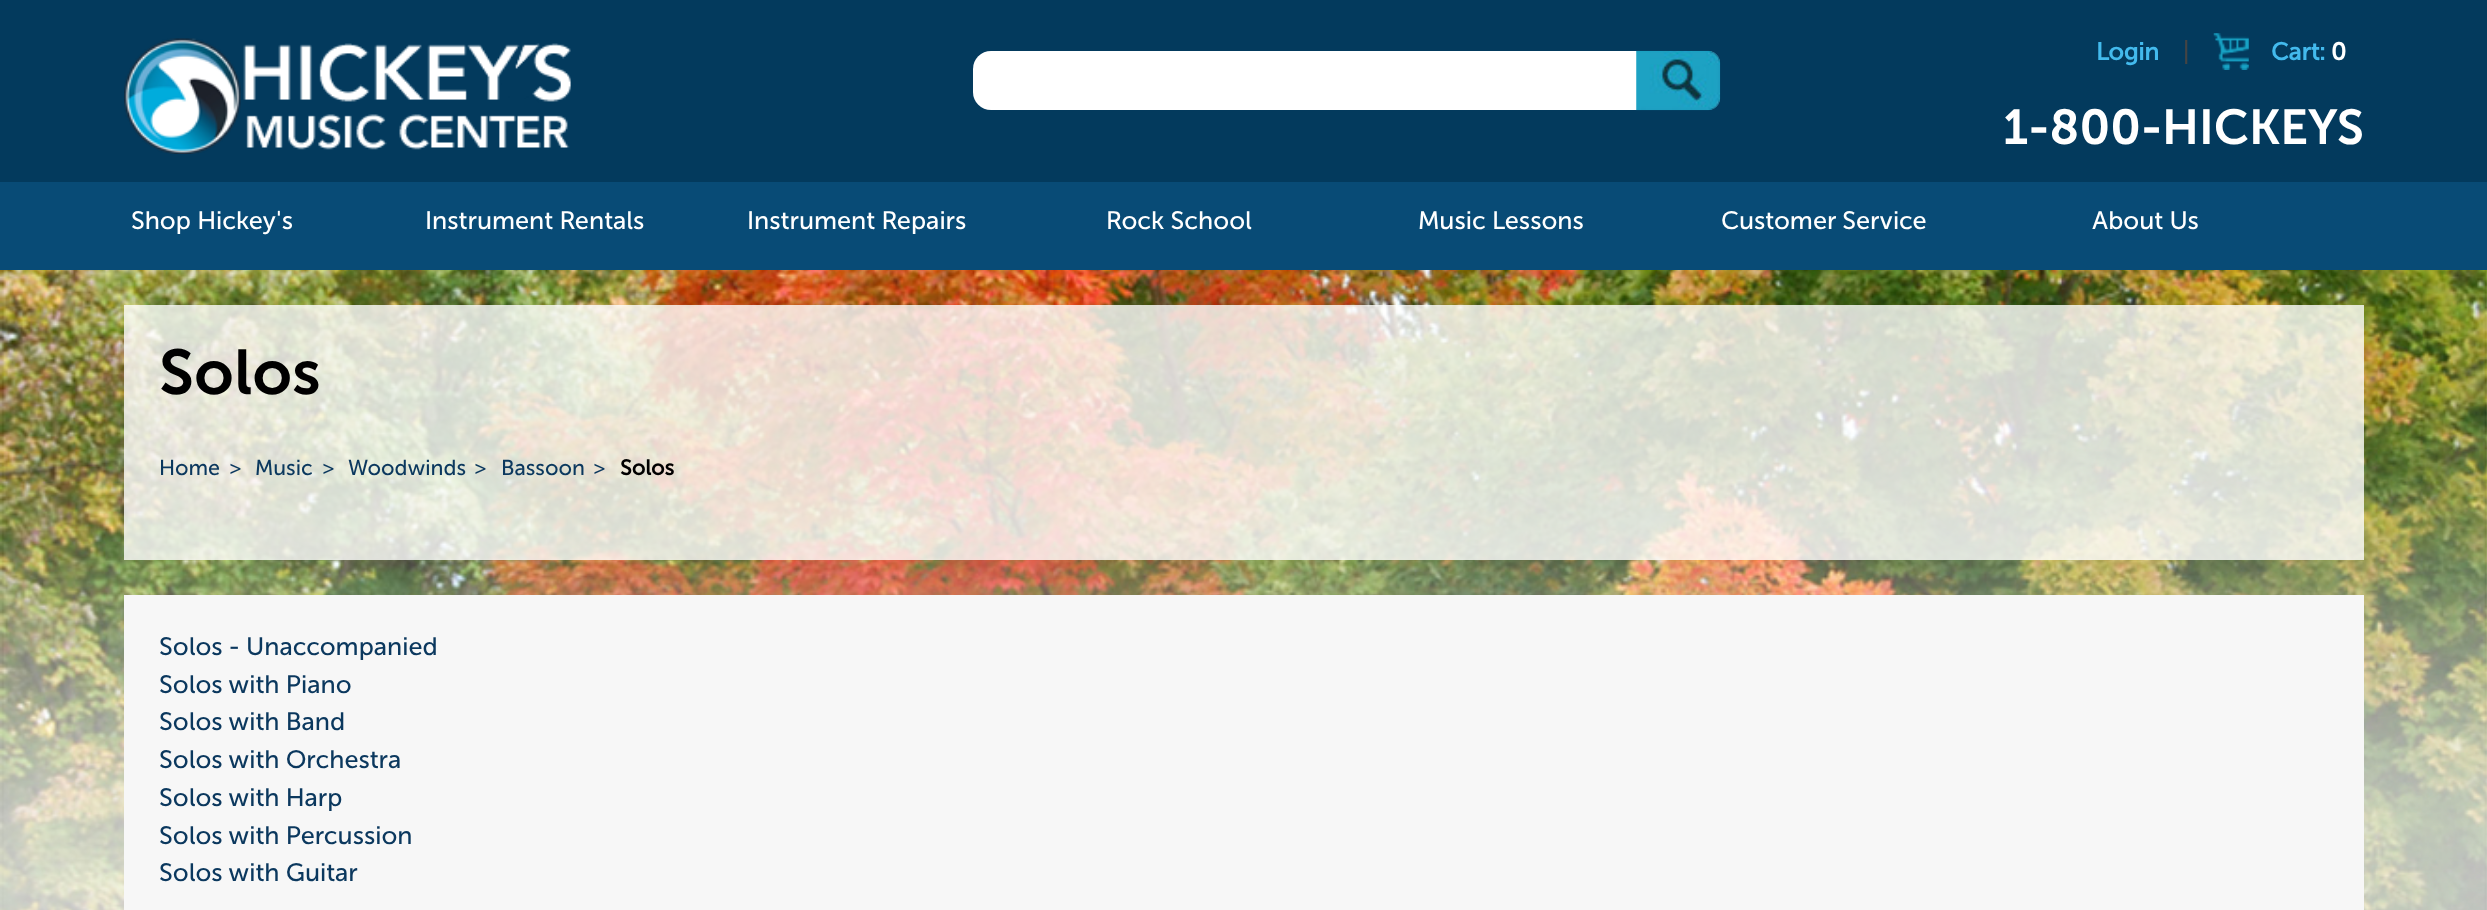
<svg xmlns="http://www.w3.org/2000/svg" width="2487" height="910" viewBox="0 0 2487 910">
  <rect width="100%" height="100%" fill="#ffffff"/>
  <image x="0" y="270" width="2487" height="640" href="img1.png"/>
  <rect x="0" y="0" width="2487" height="182" fill="#033a5d"/>
  <image x="124" y="38" width="447" height="116" href="img2.png"/>
  <rect x="973" y="51" width="747" height="59" rx="18" fill="#ffffff"/>
  <path d="M1577 51H1708C1714.5 51 1720 56.5 1720 63V98C1720 104.5 1714.5 110 1708 110H1577C1573 110 1570 107 1570 103V58C1570 54 1573 51 1577 51Z" fill="#ffffff"/>
  <image x="1636" y="50" width="85" height="61" href="img3.png"/>
  <text x="2096" y="60" font-family="'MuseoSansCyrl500'" font-size="24.5" font-weight="bold" fill="#43baed">Login</text>
  <text x="2183" y="60" font-family="'MuseoSansCyrl500'" font-size="25.25" fill="#444444">|</text>
  <image x="2213" y="33" width="36" height="37" href="img4.png"/>
  <text x="2271" y="60" font-family="'MuseoSansCyrl500'" font-size="24.5" font-weight="bold" fill="#43baed">Cart:</text>
  <text x="2331" y="60" font-family="'MuseoSansCyrl500'" font-size="24.5" font-weight="bold" fill="#ffffff">0</text>
  <text x="2003" y="144" font-family="'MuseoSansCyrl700'" font-size="49" fill="#ffffff">1-800-HICKEYS</text>
  <rect x="0" y="182" width="2487" height="88" fill="#084b76"/>
  <text x="131" y="229" font-family="'MuseoSansCyrl500'" font-size="25.25" fill="#ffffff">Shop Hickey's</text>
  <text x="425" y="229" font-family="'MuseoSansCyrl500'" font-size="25.25" fill="#ffffff">Instrument Rentals</text>
  <text x="747" y="229" font-family="'MuseoSansCyrl500'" font-size="25.25" fill="#ffffff">Instrument Repairs</text>
  <text x="1106" y="229" font-family="'MuseoSansCyrl500'" font-size="25.25" fill="#ffffff">Rock School</text>
  <text x="1418" y="229" font-family="'MuseoSansCyrl500'" font-size="25.25" fill="#ffffff">Music Lessons</text>
  <text x="1721" y="229" font-family="'MuseoSansCyrl500'" font-size="25.25" fill="#ffffff">Customer Service</text>
  <text x="2092" y="229" font-family="'MuseoSansCyrl500'" font-size="25.25" fill="#ffffff">About Us</text>
  <rect x="124" y="305" width="2240" height="255" fill="#ffffff" fill-opacity="0.8"/>
  <text x="159" y="394" font-family="'MuseoSansCyrl700'" font-size="63" fill="#000000">Solos</text>
  <text x="159" y="475" font-family="'MuseoSansCyrl500'" font-size="21.5" fill="#0b385e">Home</text>
  <text x="229" y="475" font-family="'MuseoSansCyrl500'" font-size="21.5" fill="#0b385e">&gt;</text>
  <text x="255" y="475" font-family="'MuseoSansCyrl500'" font-size="21.5" fill="#0b385e">Music</text>
  <text x="322" y="475" font-family="'MuseoSansCyrl500'" font-size="21.5" fill="#0b385e">&gt;</text>
  <text x="348" y="475" font-family="'MuseoSansCyrl500'" font-size="21.5" fill="#0b385e">Woodwinds</text>
  <text x="474" y="475" font-family="'MuseoSansCyrl500'" font-size="21.5" fill="#0b385e">&gt;</text>
  <text x="501" y="475" font-family="'MuseoSansCyrl500'" font-size="21.5" fill="#0b385e">Bassoon</text>
  <text x="593" y="475" font-family="'MuseoSansCyrl500'" font-size="21.5" fill="#0b385e">&gt;</text>
  <text x="620" y="475" font-family="'MuseoSansCyrl500'" font-size="21.5" font-weight="bold" fill="#000000">Solos</text>
  <rect x="124" y="595" width="2240" height="315" fill="#f7f7f7"/>
  <text x="159" y="655" font-family="'MuseoSansCyrl500'" font-size="25.25" fill="#0b385e">Solos - Unaccompanied</text>
  <text x="159" y="693" font-family="'MuseoSansCyrl500'" font-size="25.25" fill="#0b385e">Solos with Piano</text>
  <text x="159" y="730" font-family="'MuseoSansCyrl500'" font-size="25.25" fill="#0b385e">Solos with Band</text>
  <text x="159" y="768" font-family="'MuseoSansCyrl500'" font-size="25.25" fill="#0b385e">Solos with Orchestra</text>
  <text x="159" y="806" font-family="'MuseoSansCyrl500'" font-size="25.25" fill="#0b385e">Solos with Harp</text>
  <text x="159" y="844" font-family="'MuseoSansCyrl500'" font-size="25.25" fill="#0b385e">Solos with Percussion</text>
  <text x="159" y="881" font-family="'MuseoSansCyrl500'" font-size="25.25" fill="#0b385e">Solos with Guitar</text>
</svg>
